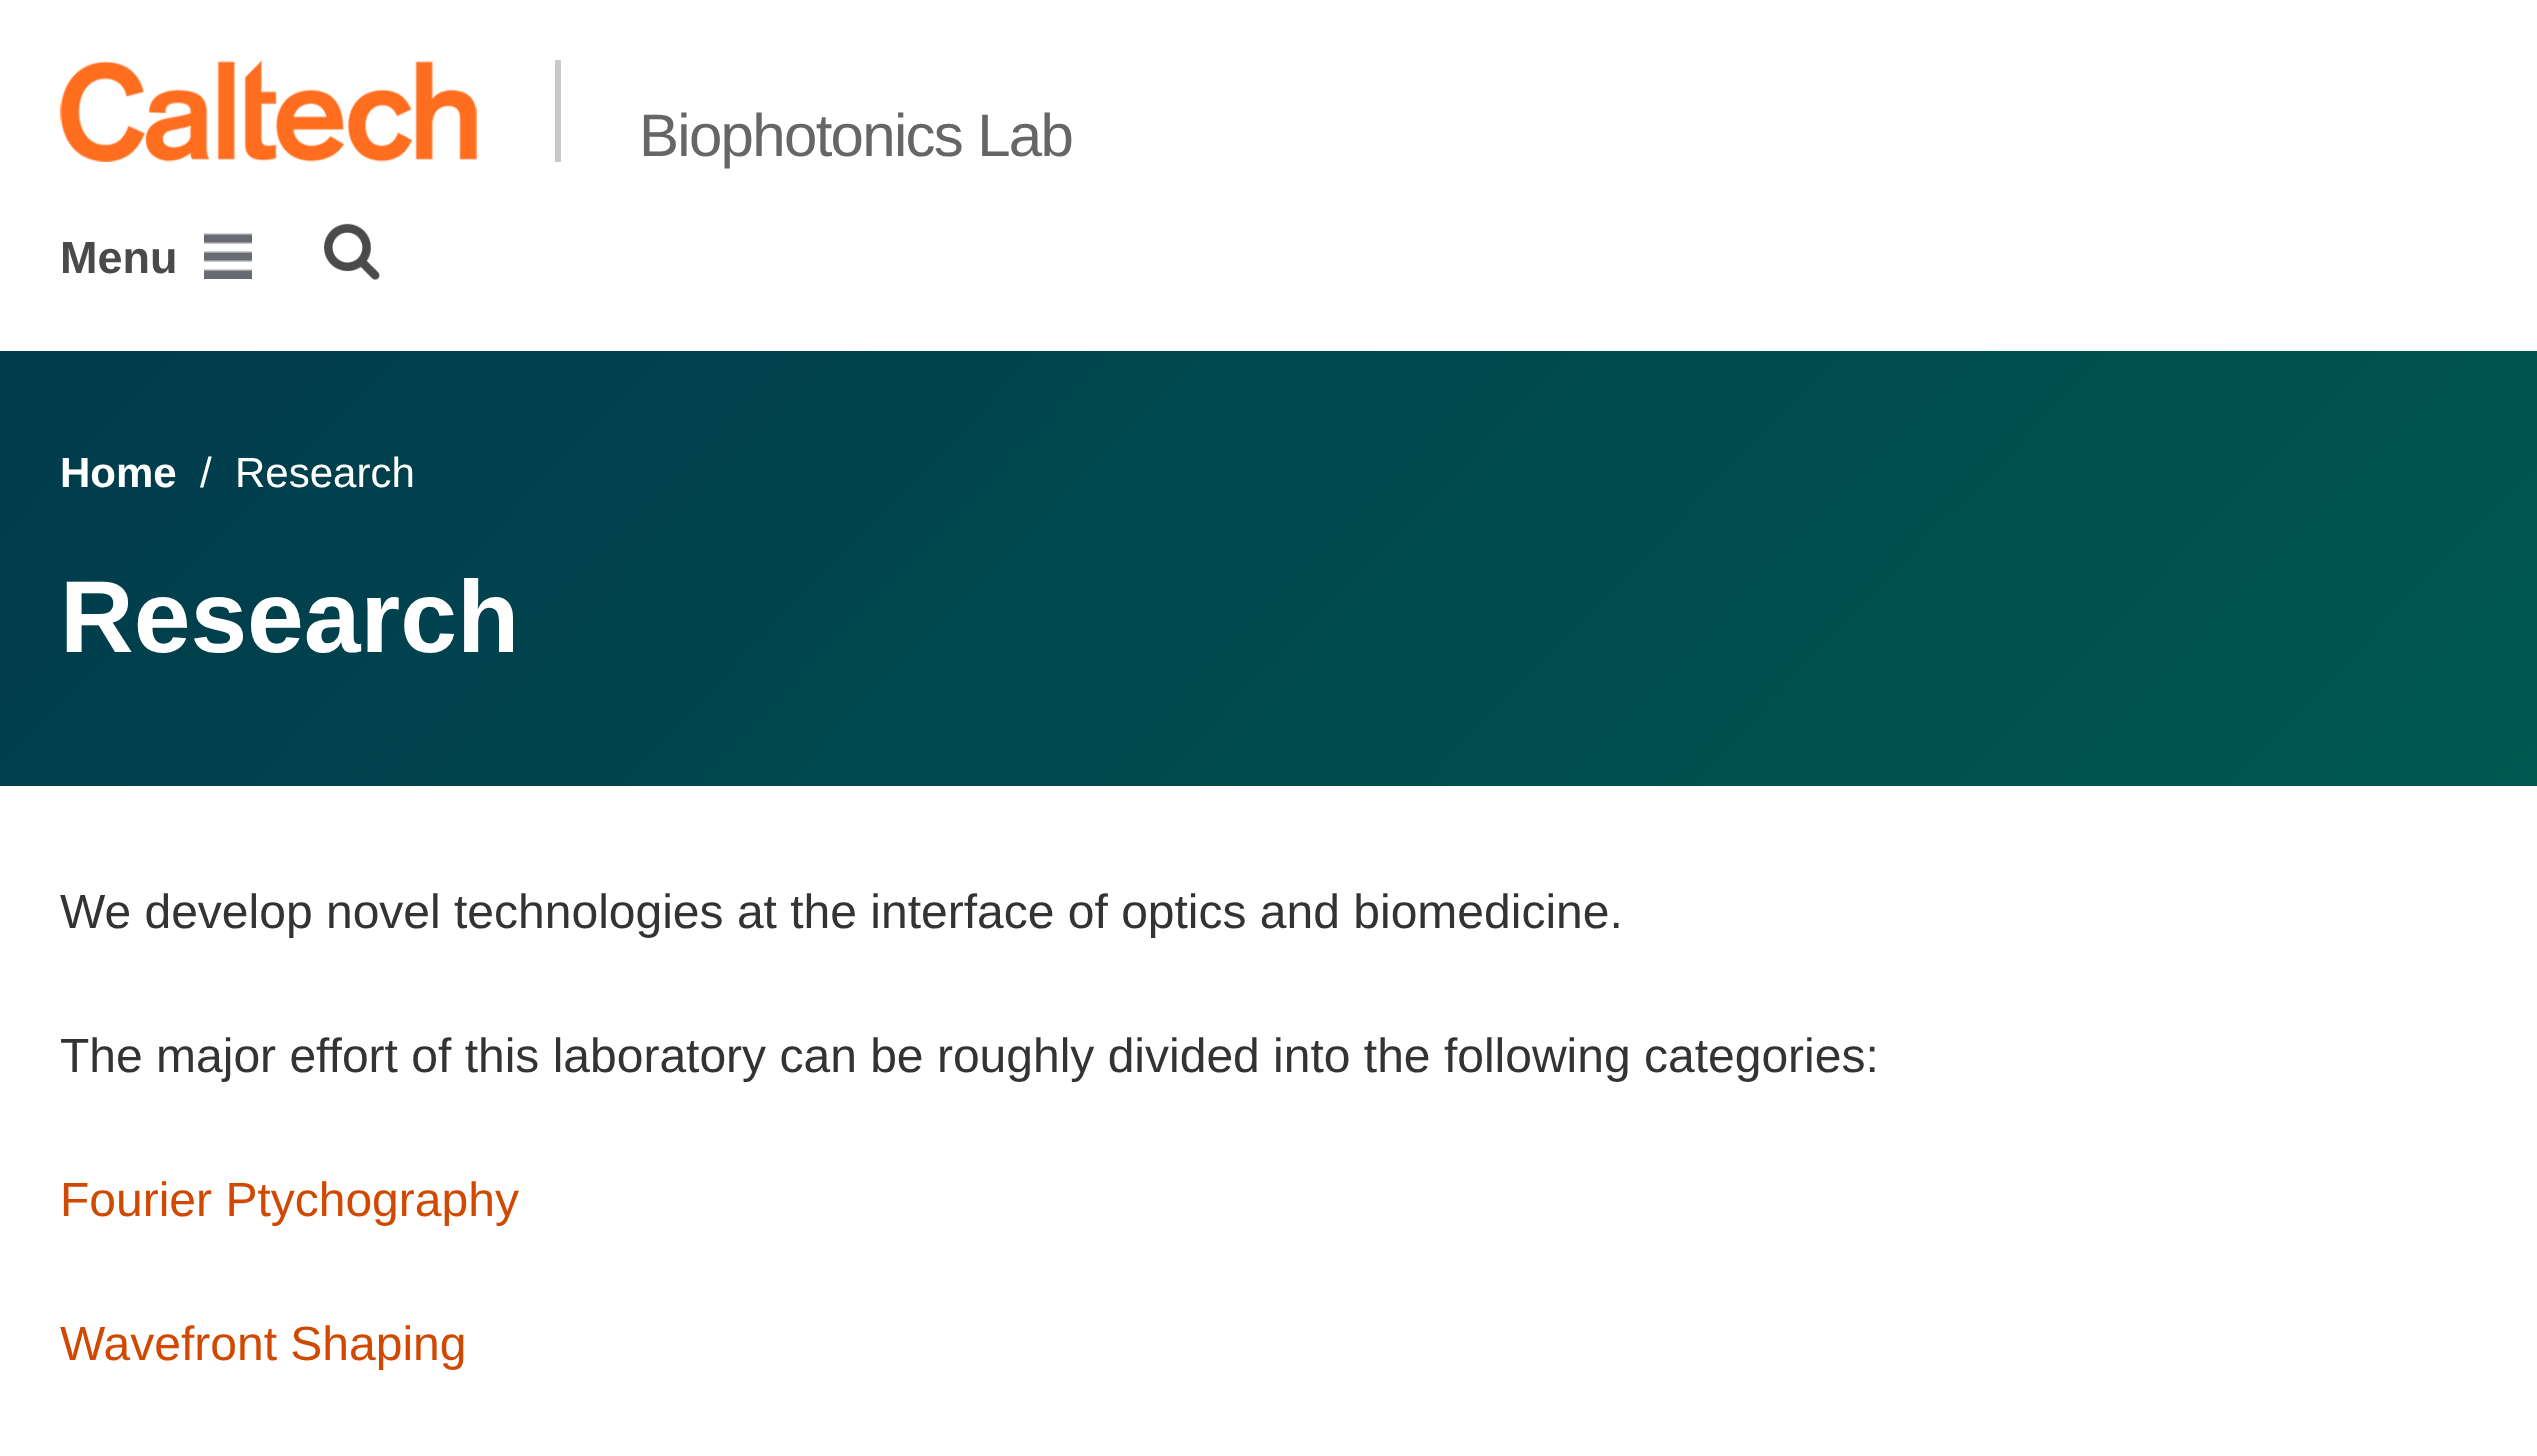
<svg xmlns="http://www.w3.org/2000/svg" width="2537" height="1456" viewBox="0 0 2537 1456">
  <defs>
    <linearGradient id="g1" gradientUnits="userSpaceOnUse" x1="504" y1="-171" x2="2034" y2="1308"><stop offset="0" stop-color="#003b4c"/><stop offset="1" stop-color="#005851"/></linearGradient>
  </defs>
  <rect width="100%" height="100%" fill="#ffffff"/>
  <image x="60" y="60" width="417" height="102" href="img1.png"/>
  <rect x="555" y="60" width="6" height="102" fill="#c8c8c8"/>
  <text x="639" y="156" font-family="Liberation Sans" font-size="60" letter-spacing="-1.7" fill="#666666">Biophotonics Lab</text>
  <text x="60" y="273" font-family="Liberation Sans" font-size="45" font-weight="bold" fill="#4a4a4a">Menu</text>
  <image x="204" y="233" width="48" height="46" href="img2.png"/>
  <image x="324" y="223" width="56" height="58" href="img3.png"/>
  <rect x="0" y="351" width="2537" height="435" fill="url(#g1)"/>
  <text x="60" y="487" font-family="Liberation Sans" font-size="42" font-weight="bold" fill="#ffffff">Home</text>
  <text x="200" y="487" font-family="Liberation Sans" font-size="42" fill="#ffffff">/</text>
  <text x="235" y="487" font-family="Liberation Sans" font-size="42" fill="#ffffff">Research</text>
  <text x="60" y="652" font-family="Liberation Sans" font-size="102" font-weight="bold" fill="#ffffff">Research</text>
  <text x="60" y="928" font-family="Liberation Sans" font-size="48" fill="#333333">We develop novel technologies at the interface of optics and biomedicine.</text>
  <text x="60" y="1072" font-family="Liberation Sans" font-size="48" fill="#333333">The major effort of this laboratory can be roughly divided into the following categories:</text>
  <text x="60" y="1216" font-family="Liberation Sans" font-size="48" fill="#d14900">Fourier Ptychography</text>
  <text x="60" y="1360" font-family="Liberation Sans" font-size="48" fill="#d14900">Wavefront Shaping</text>
</svg>
